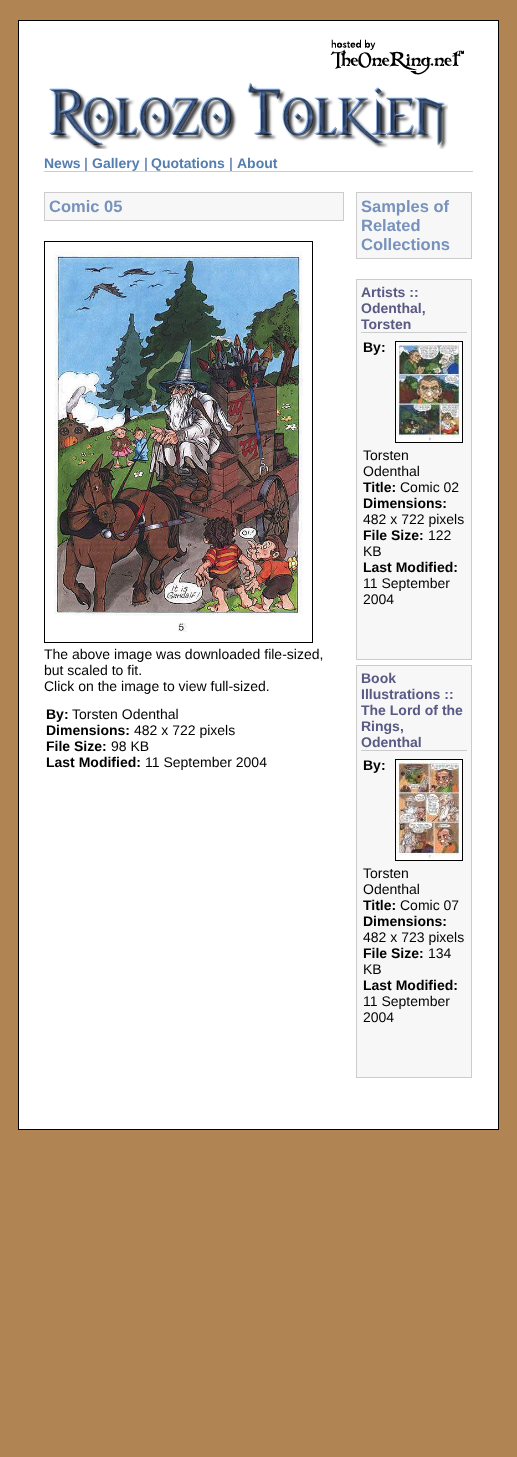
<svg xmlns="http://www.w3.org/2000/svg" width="517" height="1457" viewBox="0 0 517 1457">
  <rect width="100%" height="100%" fill="#b08553"/>
  <rect x="18.5" y="20.5" width="480" height="1109" fill="#ffffff" stroke="#000000"/>
  <image x="330" y="39" width="134" height="36" href="img1.png"/>
  <image x="49" y="82" width="399" height="67" href="img2.png"/>
  <rect x="44" y="171" width="429" height="1" fill="#cccccc"/>
  <text x="44" y="168" font-family="Liberation Sans" font-size="14" font-weight="bold" fill="#537eb0">News</text>
  <text x="84" y="168" font-family="Liberation Sans" font-size="14" font-weight="bold" fill="#7792bc">|</text>
  <text x="92" y="168" font-family="Liberation Sans" font-size="14" font-weight="bold" fill="#537eb0">Gallery</text>
  <text x="144" y="168" font-family="Liberation Sans" font-size="14" font-weight="bold" fill="#7792bc">|</text>
  <text x="151" y="168" font-family="Liberation Sans" font-size="14" font-weight="bold" fill="#537eb0">Quotations</text>
  <text x="229" y="168" font-family="Liberation Sans" font-size="14" font-weight="bold" fill="#7792bc">|</text>
  <text x="237" y="168" font-family="Liberation Sans" font-size="14" font-weight="bold" fill="#537eb0">About</text>
  <rect x="44.5" y="192.5" width="299" height="28" fill="#f7f7f7" stroke="#cccccc"/>
  <text x="49" y="212" font-family="Liberation Sans" font-size="16.5" font-weight="bold" fill="#7792bc">Comic 05</text>
  <rect x="44.5" y="241.5" width="268" height="401" fill="none" stroke="#000000"/>
  <image x="54" y="251" width="249" height="381" href="img3.png"/>
  <text x="44" y="659" font-family="Liberation Sans" font-size="14" fill="#000000">The above image was downloaded file-sized,</text>
  <text x="44" y="675" font-family="Liberation Sans" font-size="14" fill="#000000">but scaled to fit.</text>
  <text x="44" y="691" font-family="Liberation Sans" font-size="14" fill="#000000">Click on the image to view full-sized.</text>
  <text x="46" y="719" font-family="Liberation Sans" font-size="14" font-weight="bold" fill="#000000">By:</text>
  <text x="72" y="719" font-family="Liberation Sans" font-size="14" fill="#000000">Torsten Odenthal</text>
  <text x="46" y="735" font-family="Liberation Sans" font-size="14" font-weight="bold" fill="#000000">Dimensions:</text>
  <text x="134" y="735" font-family="Liberation Sans" font-size="14" fill="#000000">482 x 722 pixels</text>
  <text x="46" y="751" font-family="Liberation Sans" font-size="14" font-weight="bold" fill="#000000">File Size:</text>
  <text x="111" y="751" font-family="Liberation Sans" font-size="14" fill="#000000">98 KB</text>
  <text x="46" y="767" font-family="Liberation Sans" font-size="14" font-weight="bold" fill="#000000">Last Modified:</text>
  <text x="145" y="767" font-family="Liberation Sans" font-size="14" fill="#000000">11 September 2004</text>
  <rect x="356.5" y="192.5" width="115" height="66" fill="#f7f7f7" stroke="#cccccc"/>
  <text x="361" y="212" font-family="Liberation Sans" font-size="16.5" font-weight="bold" fill="#7792bc">Samples of</text>
  <text x="361" y="231" font-family="Liberation Sans" font-size="16.5" font-weight="bold" fill="#7792bc">Related</text>
  <text x="361" y="250" font-family="Liberation Sans" font-size="16.5" font-weight="bold" fill="#7792bc">Collections</text>
  <rect x="356.5" y="279.5" width="115" height="380" fill="#f7f7f7" stroke="#cccccc"/>
  <rect x="361" y="332" width="106" height="1" fill="#cccccc"/>
  <text x="361" y="297" font-family="Liberation Sans" font-size="14" font-weight="bold" fill="#595983">Artists ::</text>
  <text x="361" y="313" font-family="Liberation Sans" font-size="14" font-weight="bold" fill="#595983">Odenthal,</text>
  <text x="361" y="329" font-family="Liberation Sans" font-size="14" font-weight="bold" fill="#595983">Torsten</text>
  <rect x="395.5" y="341.5" width="67" height="101" fill="none" stroke="#000000"/>
  <image x="396" y="342" width="66" height="100" href="img4.png"/>
  <text x="363" y="352" font-family="Liberation Sans" font-size="14" font-weight="bold" fill="#000000">By:</text>
  <text x="363" y="460" font-family="Liberation Sans" font-size="14" fill="#000000">Torsten</text>
  <text x="363" y="476" font-family="Liberation Sans" font-size="14" fill="#000000">Odenthal</text>
  <text x="363" y="492" font-family="Liberation Sans" font-size="14" font-weight="bold" fill="#000000">Title:</text>
  <text x="400" y="492" font-family="Liberation Sans" font-size="14" fill="#000000">Comic 02</text>
  <text x="363" y="508" font-family="Liberation Sans" font-size="14" font-weight="bold" fill="#000000">Dimensions:</text>
  <text x="363" y="524" font-family="Liberation Sans" font-size="14" fill="#000000">482 x 722 pixels</text>
  <text x="363" y="540" font-family="Liberation Sans" font-size="14" font-weight="bold" fill="#000000">File Size:</text>
  <text x="428" y="540" font-family="Liberation Sans" font-size="14" fill="#000000">122</text>
  <text x="363" y="556" font-family="Liberation Sans" font-size="14" fill="#000000">KB</text>
  <text x="363" y="572" font-family="Liberation Sans" font-size="14" font-weight="bold" fill="#000000">Last Modified:</text>
  <text x="363" y="588" font-family="Liberation Sans" font-size="14" fill="#000000">11 September</text>
  <text x="363" y="604" font-family="Liberation Sans" font-size="14" fill="#000000">2004</text>
  <rect x="356.5" y="665.5" width="115" height="412" fill="#f7f7f7" stroke="#cccccc"/>
  <rect x="361" y="750" width="106" height="1" fill="#cccccc"/>
  <text x="361" y="683" font-family="Liberation Sans" font-size="14" font-weight="bold" fill="#595983">Book</text>
  <text x="361" y="699" font-family="Liberation Sans" font-size="14" font-weight="bold" fill="#595983">Illustrations ::</text>
  <text x="361" y="715" font-family="Liberation Sans" font-size="14" font-weight="bold" fill="#595983">The Lord of the</text>
  <text x="361" y="731" font-family="Liberation Sans" font-size="14" font-weight="bold" fill="#595983">Rings,</text>
  <text x="361" y="747" font-family="Liberation Sans" font-size="14" font-weight="bold" fill="#595983">Odenthal</text>
  <rect x="395.5" y="759.5" width="67" height="101" fill="none" stroke="#000000"/>
  <image x="396" y="760" width="66" height="100" href="img5.png"/>
  <text x="363" y="770" font-family="Liberation Sans" font-size="14" font-weight="bold" fill="#000000">By:</text>
  <text x="363" y="878" font-family="Liberation Sans" font-size="14" fill="#000000">Torsten</text>
  <text x="363" y="894" font-family="Liberation Sans" font-size="14" fill="#000000">Odenthal</text>
  <text x="363" y="910" font-family="Liberation Sans" font-size="14" font-weight="bold" fill="#000000">Title:</text>
  <text x="400" y="910" font-family="Liberation Sans" font-size="14" fill="#000000">Comic 07</text>
  <text x="363" y="926" font-family="Liberation Sans" font-size="14" font-weight="bold" fill="#000000">Dimensions:</text>
  <text x="363" y="942" font-family="Liberation Sans" font-size="14" fill="#000000">482 x 723 pixels</text>
  <text x="363" y="958" font-family="Liberation Sans" font-size="14" font-weight="bold" fill="#000000">File Size:</text>
  <text x="428" y="958" font-family="Liberation Sans" font-size="14" fill="#000000">134</text>
  <text x="363" y="974" font-family="Liberation Sans" font-size="14" fill="#000000">KB</text>
  <text x="363" y="990" font-family="Liberation Sans" font-size="14" font-weight="bold" fill="#000000">Last Modified:</text>
  <text x="363" y="1006" font-family="Liberation Sans" font-size="14" fill="#000000">11 September</text>
  <text x="363" y="1022" font-family="Liberation Sans" font-size="14" fill="#000000">2004</text>
</svg>
